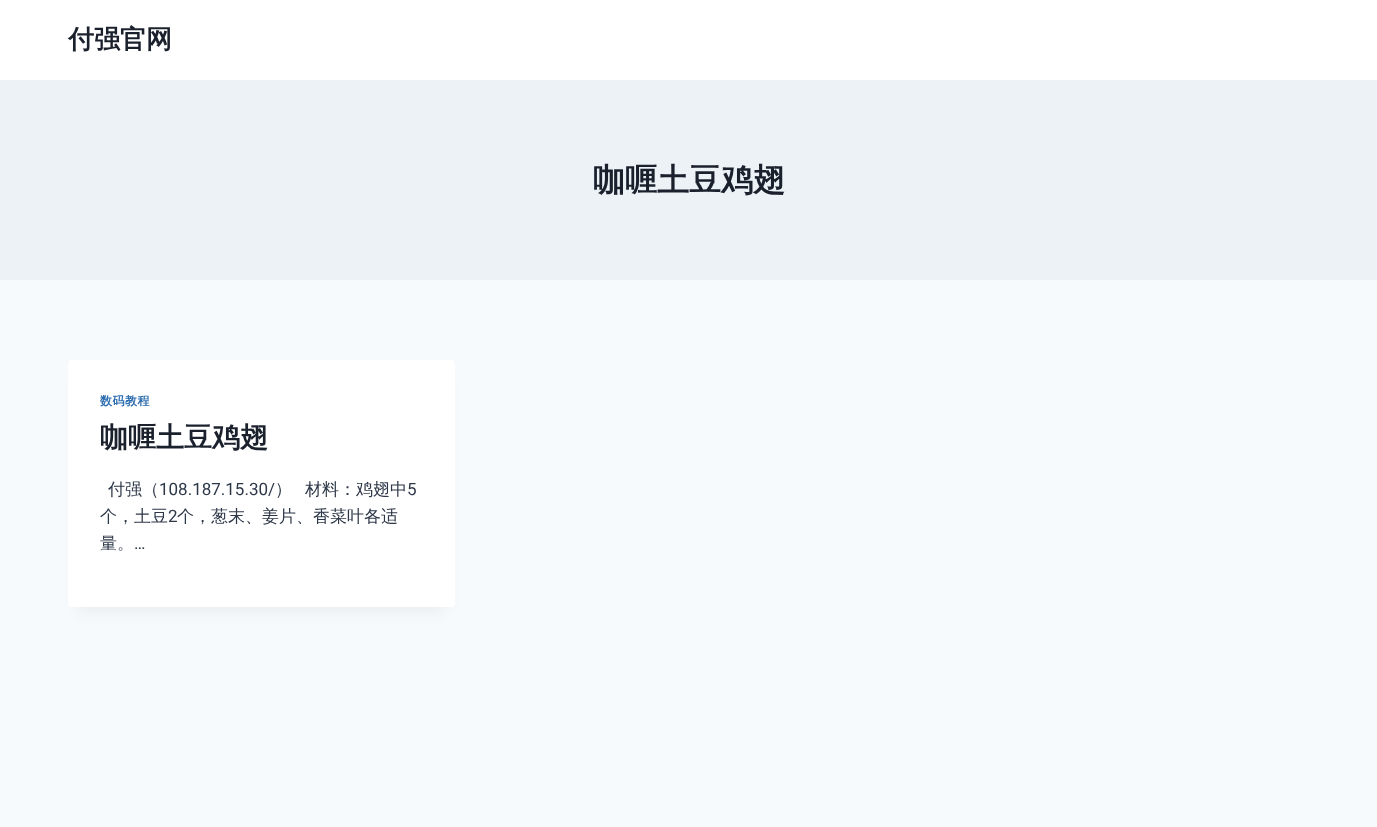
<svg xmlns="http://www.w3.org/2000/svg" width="1377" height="827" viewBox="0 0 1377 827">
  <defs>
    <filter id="blur1" x="-50%" y="-200%" width="200%" height="500%"><feGaussianBlur stdDeviation="7.5"/></filter>
  </defs>
  <rect width="100%" height="100%" fill="#f7fafc"/>
  <rect x="0" y="0" width="1377" height="80" fill="#ffffff"/>
  <text x="68" y="48" font-family="WenQuanYi Zen Hei" font-size="26" font-weight="bold" fill="#1a202c">付强官网</text>
  <rect x="0" y="80" width="1377" height="200" fill="#edf2f7"/>
  <text x="593" y="191" font-family="WenQuanYi Zen Hei" font-size="32" font-weight="bold" fill="#1a202c">咖喱土豆鸡翅</text>
  <rect x="78" y="385" width="367" height="227" fill="#000000" fill-opacity="0.05" filter="url(#blur1)"/>
  <rect x="68" y="360" width="387" height="247" rx="4" fill="#ffffff"/>
  <text x="100" y="405" font-family="WenQuanYi Zen Hei" font-size="12" font-weight="bold" letter-spacing="0.5" fill="#2b6cb0">数码教程</text>
  <text x="100" y="447" font-family="WenQuanYi Zen Hei" font-size="28" font-weight="bold" fill="#1a202c">咖喱土豆鸡翅</text>
  <text x="108" y="495" font-family="WenQuanYi Zen Hei" font-size="17" font-weight="500" fill="#2d3748">付强（</text>
  <text x="159" y="495" font-family="Roboto" font-size="17" fill="#2d3748">108.187.15.30/</text>
  <text x="275" y="495" font-family="WenQuanYi Zen Hei" font-size="17" font-weight="500" fill="#2d3748">）</text>
  <text x="305" y="495" font-family="WenQuanYi Zen Hei" font-size="17" font-weight="500" fill="#2d3748">材料：鸡翅中</text>
  <text x="407" y="495" font-family="Roboto" font-size="17" fill="#2d3748">5</text>
  <text x="100" y="522" font-family="WenQuanYi Zen Hei" font-size="17" font-weight="500" fill="#2d3748">个，土豆</text>
  <text x="168" y="522" font-family="Roboto" font-size="17" fill="#2d3748">2</text>
  <text x="177" y="522" font-family="WenQuanYi Zen Hei" font-size="17" font-weight="500" fill="#2d3748">个，葱末、姜片、香菜叶各适</text>
  <text x="100" y="549" font-family="WenQuanYi Zen Hei" font-size="17" font-weight="500" fill="#2d3748">量。</text>
  <text x="134" y="549" font-family="Roboto" font-size="17" fill="#2d3748">…</text>
</svg>
